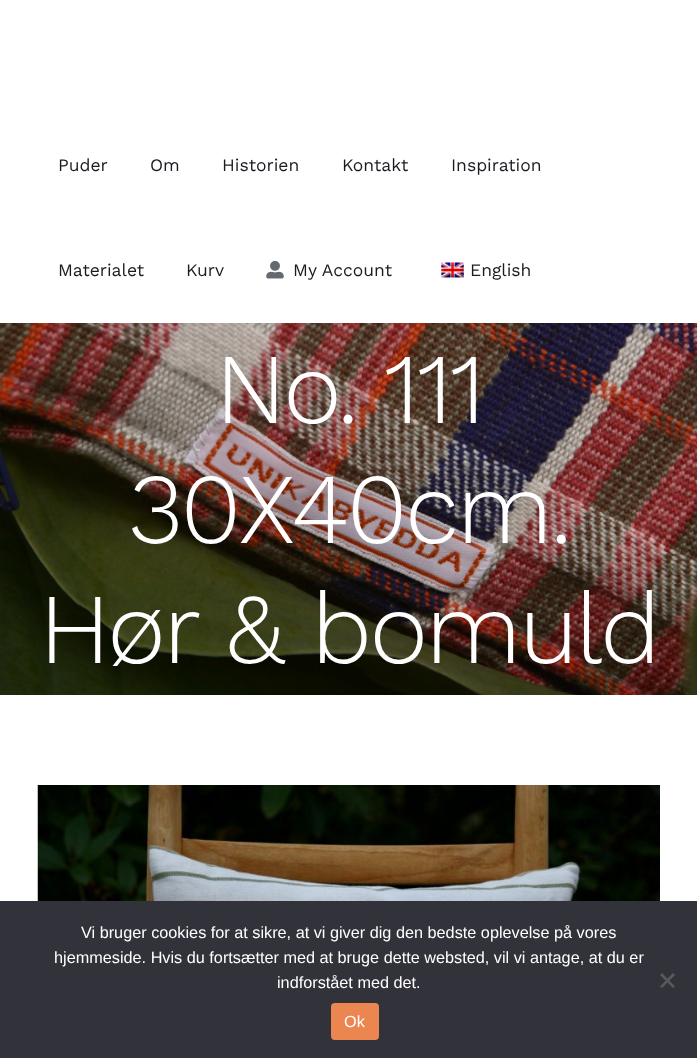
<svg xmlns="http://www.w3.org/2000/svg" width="697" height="1058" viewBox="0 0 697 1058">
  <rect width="100%" height="100%" fill="#ffffff"/>
  <text x="58" y="171" font-family="Work Sans" font-size="17.5" fill="#181b20">Puder</text>
  <text x="150" y="171" font-family="Work Sans" font-size="17.5" fill="#181b20">Om</text>
  <text x="222" y="171" font-family="Work Sans" font-size="17.5" fill="#181b20">Historien</text>
  <text x="342" y="171" font-family="Work Sans" font-size="17.5" fill="#181b20">Kontakt</text>
  <text x="451" y="171" font-family="Work Sans" font-size="17.5" fill="#181b20">Inspiration</text>
  <text x="58" y="276" font-family="Work Sans" font-size="17.5" fill="#181b20">Materialet</text>
  <text x="186" y="276" font-family="Work Sans" font-size="17.5" fill="#181b20">Kurv</text>
  <image x="266" y="261" width="18" height="18" href="img1.png"/>
  <text x="293" y="276" font-family="Work Sans" font-size="17.5" fill="#181b20">My Account</text>
  <image x="441" y="262" width="23" height="16" href="img2.png"/>
  <text x="470" y="276" font-family="Work Sans" font-size="17.5" fill="#181b20">English</text>
  <image x="0" y="323" width="697" height="372" href="img3.png"/>
  <text x="215" y="423" font-family="Work Sans" font-size="100" font-weight="300" letter-spacing="-2.5" fill="#ffffff">No. 111</text>
  <text x="128" y="543" font-family="Work Sans" font-size="100" font-weight="300" letter-spacing="-2.5" fill="#ffffff">30X40cm.</text>
  <text x="39" y="663" font-family="Work Sans" font-size="100" font-weight="300" letter-spacing="-2.5" fill="#ffffff">Hør &amp; bomuld</text>
  <image x="37" y="785" width="623" height="116" href="img4.png"/>
  <rect x="0" y="901" width="697" height="157" fill="#32323a"/>
  <text x="81" y="938" font-family="Liberation Sans" font-size="16.25" fill="#ffffff">Vi bruger cookies for at sikre, at vi giver dig den bedste oplevelse på vores</text>
  <text x="54" y="963" font-family="Liberation Sans" font-size="16.25" fill="#ffffff">hjemmeside. Hvis du fortsætter med at bruge dette websted, vil vi antage, at du er</text>
  <text x="277" y="988" font-family="Liberation Sans" font-size="16.25" fill="#ffffff">indforstået med det.</text>
  <path d="M673 973L675 975L662 988L660 986.5Z" fill="#59595d"/>
  <path d="M660 975L662 973L675 986.5L673 988Z" fill="#59595d"/>
  <rect x="331" y="1003" width="48" height="37" rx="4" fill="#ec8650"/>
  <text x="344" y="1027" font-family="Liberation Sans" font-size="16.25" fill="#ffffff">Ok</text>
</svg>
